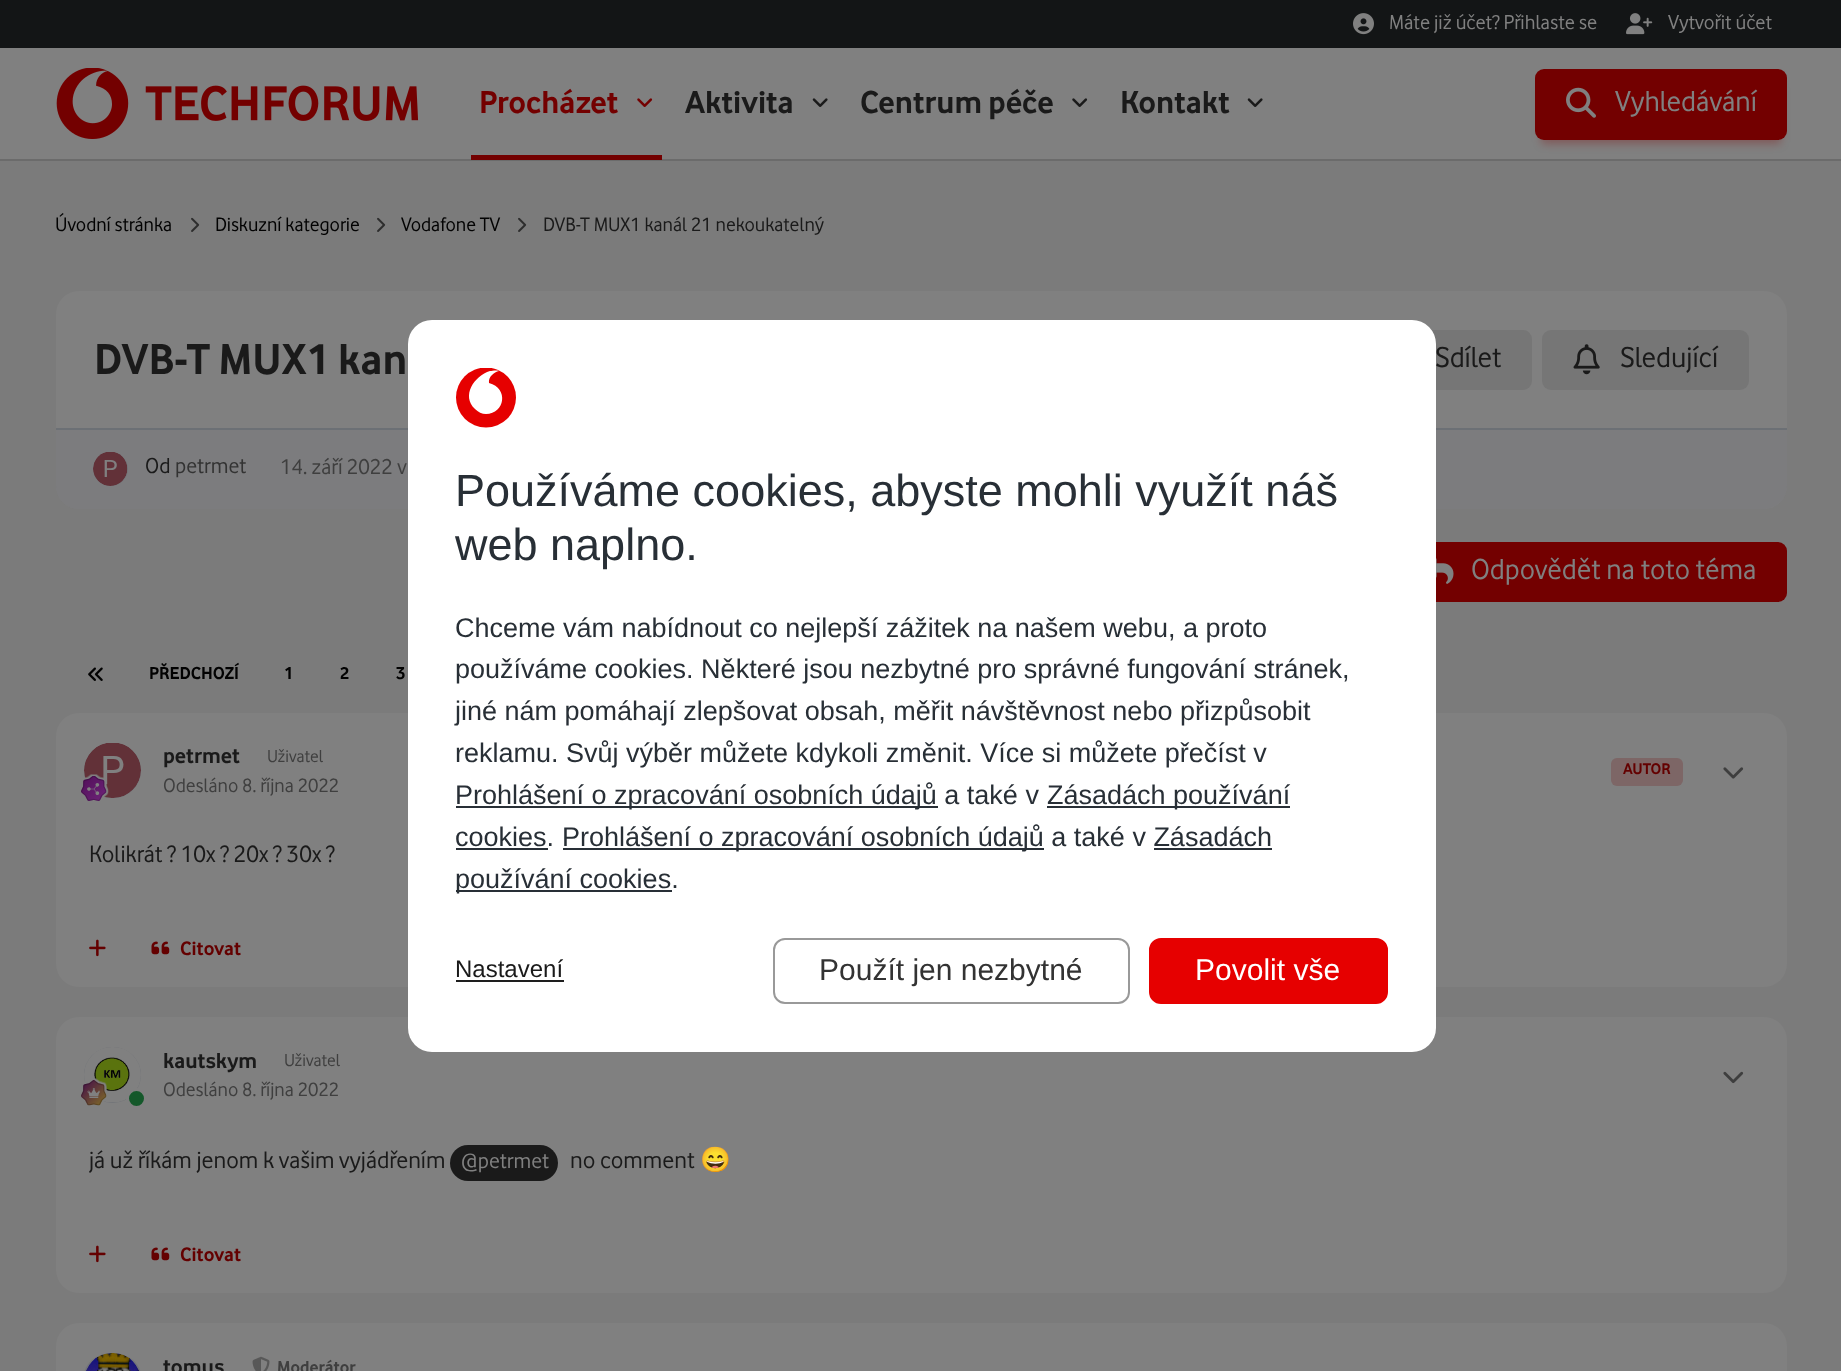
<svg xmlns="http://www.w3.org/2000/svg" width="1841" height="1371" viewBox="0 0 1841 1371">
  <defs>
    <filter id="blur1" x="-50%" y="-200%" width="200%" height="500%"><feGaussianBlur stdDeviation="4.5"/></filter>
    <clipPath id="clip1"><rect x="456" y="368" width="60" height="60"/></clipPath>
  </defs>
  <rect width="100%" height="100%" fill="#7b7b7b"/>
  <rect x="0" y="0" width="1841" height="48" fill="#131516"/>
  <image x="1353" y="13" width="21" height="22" href="img1.png"/>
  <text x="1389" y="29" font-family="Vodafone" font-size="21" fill="#808080">Máte již účet? Přihlaste se</text>
  <image x="1626" y="13" width="27" height="22" href="img2.png"/>
  <text x="1668" y="29" font-family="Vodafone" font-size="21" fill="#808080">Vytvořit účet</text>
  <rect x="0" y="48" width="1841" height="111" fill="#808080"/>
  <rect x="0" y="159" width="1841" height="2" fill="#6b6b6b"/>
  <image x="56" y="68" width="363" height="71" href="img3.png"/>
  <text x="479" y="113" font-family="Vodafone" font-size="33" font-weight="bold" fill="#730000">Procházet</text>
  <image x="637" y="98" width="16" height="9" href="img4.png"/>
  <rect x="471" y="155" width="191" height="5" fill="#730000"/>
  <text x="685" y="113" font-family="Vodafone" font-size="33" font-weight="bold" fill="#1a1a1a">Aktivita</text>
  <image x="812" y="98" width="16" height="9" href="img5.png"/>
  <text x="860" y="113" font-family="Vodafone" font-size="33" font-weight="bold" fill="#1a1a1a">Centrum péče</text>
  <image x="1072" y="98" width="16" height="9" href="img6.png"/>
  <text x="1120" y="113" font-family="Vodafone" font-size="33" font-weight="bold" fill="#1a1a1a">Kontakt</text>
  <image x="1247" y="98" width="16" height="9" href="img5.png"/>
  <rect x="1541" y="86" width="240" height="58" rx="3" fill="#800000" fill-opacity="0.3" filter="url(#blur1)"/>
  <rect x="1535" y="69" width="252" height="71" rx="9" fill="#730000"/>
  <image x="1566" y="87" width="30" height="31" href="img7.png"/>
  <text x="1615" y="111" font-family="Vodafone" font-size="30" fill="#808080">Vyhledávání</text>
  <text x="55" y="231" font-family="Vodafone" font-size="20.25" fill="#020202">Úvodní stránka</text>
  <image x="191" y="217" width="9" height="15" href="img8.png"/>
  <text x="215" y="231" font-family="Vodafone" font-size="20.25" fill="#020202">Diskuzní kategorie</text>
  <image x="377" y="217" width="9" height="15" href="img8.png"/>
  <text x="401" y="231" font-family="Vodafone" font-size="20.25" fill="#020202">Vodafone TV</text>
  <image x="518" y="217" width="9" height="15" href="img8.png"/>
  <text x="543" y="231" font-family="Vodafone" font-size="20.25" fill="#1a1a1a">DVB-T MUX1 kanál 21 nekoukatelný</text>
  <rect x="56" y="291" width="1731" height="218" rx="23" fill="#808080"/>
  <text x="94" y="374" font-family="Vodafone" font-size="45" font-weight="bold" fill="#1a1a1a">DVB-T MUX1 kan</text>
  <rect x="1358" y="330" width="174" height="60" rx="9" fill="#767676"/>
  <text x="1435" y="367" font-family="Vodafone" font-size="30" fill="#1a1a1a">Sdílet</text>
  <rect x="1542" y="330" width="207" height="60" rx="9" fill="#767676"/>
  <image x="1573" y="344" width="27" height="31" href="img9.png"/>
  <text x="1620" y="367" font-family="Vodafone" font-size="30" fill="#1a1a1a">Sledující</text>
  <path d="M56 428H1787V486C1787 498.5 1776.5 509 1764 509H79C66.5 509 56 498.5 56 486Z" fill="#7c7c7e"/>
  <rect x="56" y="428" width="1731" height="2" fill="#6c7075"/>
  <rect x="93" y="452" width="35" height="34" rx="17" fill="#737579"/>
  <image x="93" y="452" width="35" height="34" href="img10.png"/>
  <text x="145" y="473" font-family="Vodafone" font-size="22.5" fill="#1a1a1a">Od</text>
  <text x="175" y="473" font-family="Vodafone" font-size="22.5" fill="#333333">petrmet</text>
  <text x="280" y="474" font-family="Vodafone" font-size="22.5" fill="#3f3f3f">14. září 2022 v</text>
  <rect x="1394" y="542" width="393" height="60" rx="9" fill="#730000"/>
  <image x="1436" y="558" width="18" height="26" href="img11.png"/>
  <text x="1471" y="579" font-family="Vodafone" font-size="30" fill="#808080">Odpovědět na toto téma</text>
  <image x="88" y="667" width="15" height="14" href="img12.png"/>
  <text x="149" y="679" font-family="Vodafone" font-size="18" font-weight="bold" fill="#020202">PŘEDCHOZÍ</text>
  <text x="284" y="679" font-family="Vodafone" font-size="18" font-weight="bold" fill="#020202">1</text>
  <text x="340" y="679" font-family="Vodafone" font-size="18" font-weight="bold" fill="#020202">2</text>
  <text x="396" y="679" font-family="Vodafone" font-size="18" font-weight="bold" fill="#020202">3</text>
  <rect x="56" y="713" width="1731" height="274" rx="23" fill="#808080"/>
  <rect x="84" y="743" width="57" height="55" rx="27.5" fill="#737579"/>
  <image x="84" y="743" width="57" height="55" href="img13.png"/>
  <image x="81" y="774" width="28" height="27" href="img14.png"/>
  <text x="163" y="763" font-family="Vodafone" font-size="22.5" font-weight="bold" fill="#1a1a1a">petrmet</text>
  <text x="267" y="762" font-family="Vodafone" font-size="18" fill="#3f3f3f">Uživatel</text>
  <text x="163" y="792" font-family="Vodafone" font-size="20.25" fill="#3f3f3f">Odesláno 8. října 2022</text>
  <rect x="1611" y="758" width="72" height="28" rx="6" fill="#7d6666"/>
  <text x="1623" y="774" font-family="Vodafone" font-size="16" font-weight="bold" fill="#640000">AUTOR</text>
  <image x="1723" y="767" width="21" height="12" href="img15.png"/>
  <text x="89" y="862" font-family="Vodafone" font-size="24.75" fill="#1a1a1a">Kolikrát ? 10x ? 20x ? 30x ?</text>
  <image x="89" y="939" width="17" height="18" href="img16.png"/>
  <image x="151" y="941" width="19" height="14" href="img17.png"/>
  <text x="180" y="955" font-family="Vodafone" font-size="20.25" font-weight="bold" fill="#640000">Citovat</text>
  <rect x="56" y="1017" width="1731" height="276" rx="23" fill="#808080"/>
  <rect x="84" y="1047" width="57" height="56" rx="28" fill="#737579"/>
  <image x="84" y="1047" width="57" height="55" href="img18.png"/>
  <image x="81" y="1078" width="26" height="28" href="img19.png"/>
  <circle cx="136.5" cy="1098.5" r="9" fill="#14582a" stroke="#808080" stroke-width="3"/>
  <text x="163" y="1068" font-family="Vodafone" font-size="22.5" font-weight="bold" fill="#1a1a1a">kautskym</text>
  <text x="284" y="1066" font-family="Vodafone" font-size="18" fill="#3f3f3f">Uživatel</text>
  <text x="163" y="1096" font-family="Vodafone" font-size="20.25" fill="#3f3f3f">Odesláno 8. října 2022</text>
  <image x="1723" y="1071" width="21" height="13" href="img20.png"/>
  <text x="89" y="1168" font-family="Vodafone" font-size="24.75" fill="#1a1a1a">já už říkám jenom k vašim vyjádřením</text>
  <rect x="450" y="1145" width="108" height="36" rx="18" fill="#1a1a1a"/>
  <text x="461" y="1168" font-family="Vodafone" font-size="22.5" fill="#808080">@petrmet</text>
  <text x="570" y="1168" font-family="Vodafone" font-size="24.75" fill="#1a1a1a">no comment</text>
  <text x="700" y="1168" font-family="Noto Color Emoji" font-size="24.75" fill="#1a1a1a">😄</text>
  <image x="89" y="1245" width="17" height="18" href="img16.png"/>
  <image x="151" y="1247" width="19" height="14" href="img17.png"/>
  <text x="180" y="1261" font-family="Vodafone" font-size="20.25" font-weight="bold" fill="#640000">Citovat</text>
  <rect x="56" y="1323" width="1731" height="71" rx="23" fill="#808080"/>
  <rect x="84" y="1353" width="57" height="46" rx="28" fill="#737579"/>
  <image x="86" y="1353" width="53" height="18" href="img21.png"/>
  <text x="163" y="1374" font-family="Vodafone" font-size="22.5" font-weight="bold" fill="#1a1a1a">tomus</text>
  <image x="252" y="1356" width="18" height="15" href="img22.png"/>
  <text x="277" y="1373" font-family="Vodafone" font-size="18" font-weight="bold" fill="#3f3f3f">Moderátor</text>
  <rect x="408" y="320" width="1028" height="732" rx="24" fill="#ffffff"/>
  <g clip-path="url(#clip1)">
    <circle cx="486" cy="397.5" r="30" fill="#e60000"/>
  </g>
  <path d="M486 414C482 414 478 412 475 409C461 396 474 376 490 371C492 371 496 370 499 371C494 372 488 377 489 383C509 388 505 414 486 414Z" fill="#ffffff"/>
  <text x="455" y="506" font-family="Liberation Sans" font-size="45" fill="#282f36">Používáme cookies, abyste mohli využít náš</text>
  <text x="455" y="560" font-family="Liberation Sans" font-size="45" fill="#282f36">web naplno.</text>
  <text x="455" y="637" font-family="Liberation Sans" font-size="27" fill="#282f36">Chceme vám nabídnout co nejlepší zážitek na našem webu, a proto</text>
  <text x="455" y="678" font-family="Liberation Sans" font-size="27" fill="#282f36">používáme cookies. Některé jsou nezbytné pro správné fungování stránek,</text>
  <text x="455" y="720" font-family="Liberation Sans" font-size="27" fill="#282f36">jiné nám pomáhají zlepšovat obsah, měřit návštěvnost nebo přizpůsobit</text>
  <text x="455" y="762" font-family="Liberation Sans" font-size="27" fill="#282f36">reklamu. Svůj výběr můžete kdykoli změnit. Více si můžete přečíst v</text>
  <rect x="456" y="806" width="482" height="2" fill="#282f36"/>
  <text x="455" y="804" font-family="Liberation Sans" font-size="27" fill="#282f36">Prohlášení o zpracování osobních údajů a také v</text>
  <rect x="1047" y="806" width="243" height="2" fill="#282f36"/>
  <text x="1047" y="804" font-family="Liberation Sans" font-size="27" fill="#282f36">Zásadách používání</text>
  <text x="455" y="846" font-family="Liberation Sans" font-size="27" fill="#282f36">cookies.</text>
  <rect x="456" y="848" width="92" height="2" fill="#282f36"/>
  <rect x="563" y="848" width="481" height="2" fill="#282f36"/>
  <text x="562" y="846" font-family="Liberation Sans" font-size="27" fill="#282f36">Prohlášení o zpracování osobních údajů a také v Zásadách</text>
  <rect x="1154" y="848" width="118" height="2" fill="#282f36"/>
  <rect x="456" y="890" width="216" height="2" fill="#282f36"/>
  <text x="455" y="888" font-family="Liberation Sans" font-size="27" fill="#282f36">používání cookies.</text>
  <text x="455" y="977" font-family="Liberation Sans" font-size="24" fill="#1a1a1a">Nastavení</text>
  <rect x="456" y="980" width="108" height="2" fill="#1e1e1e"/>
  <rect x="774" y="939" width="355" height="64" rx="11" fill="none" stroke="#999999" stroke-width="2"/>
  <text x="819" y="980" font-family="Liberation Sans" font-size="30" fill="#333333">Použít jen nezbytné</text>
  <rect x="1150" y="939" width="237" height="64" rx="11" fill="#e60000" stroke="#e60000" stroke-width="2"/>
  <text x="1195" y="980" font-family="Liberation Sans" font-size="30" fill="#ffffff">Povolit vše</text>
</svg>
